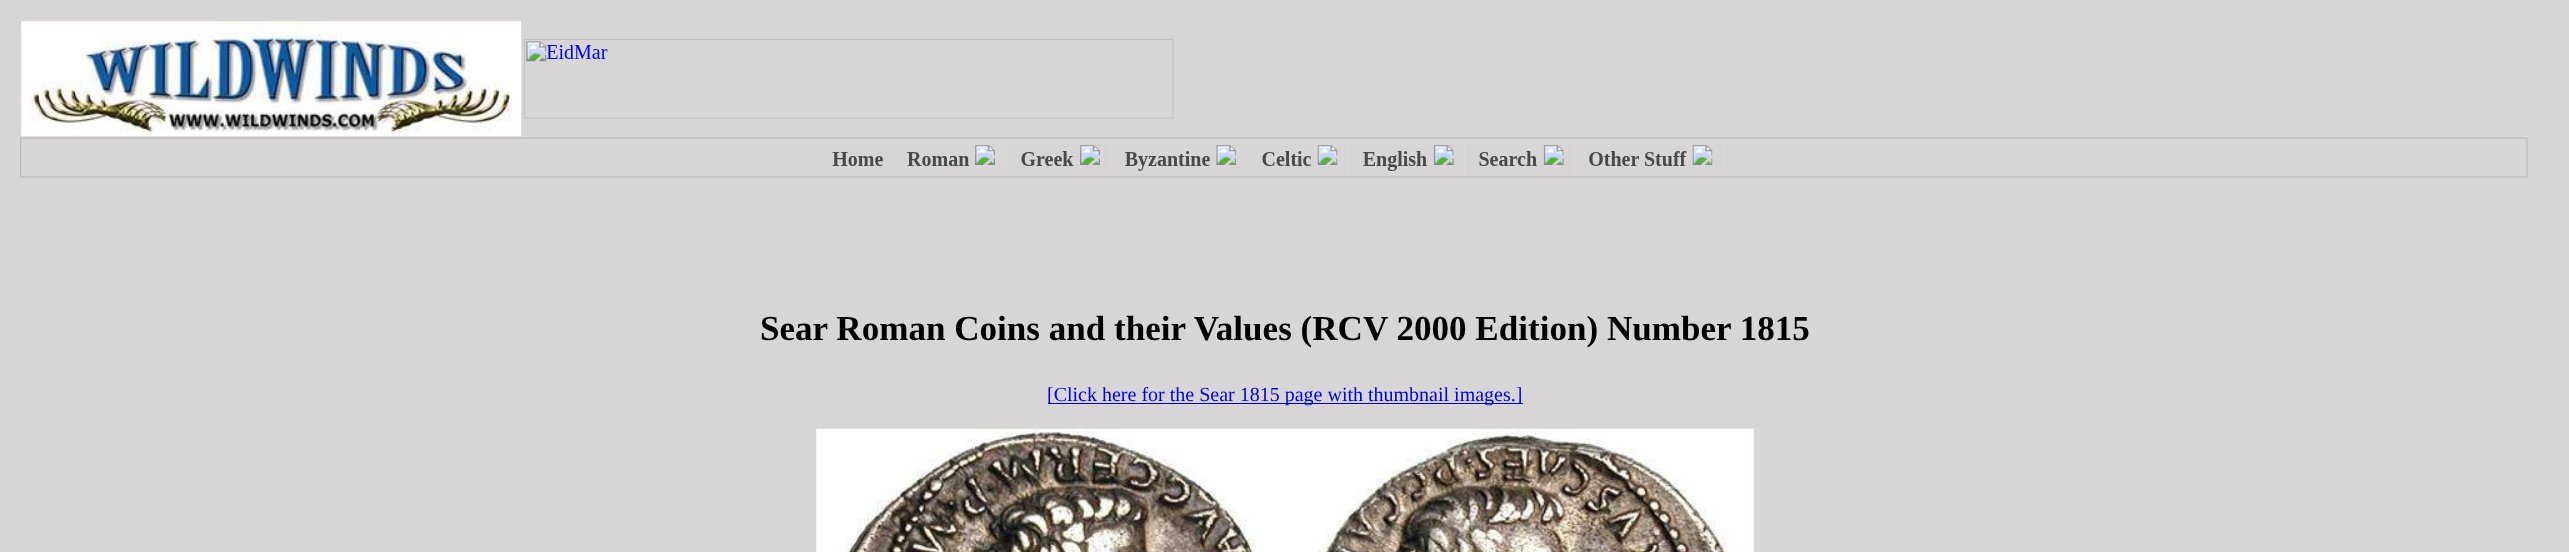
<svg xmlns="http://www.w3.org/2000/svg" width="2569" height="552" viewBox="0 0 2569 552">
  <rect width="100%" height="100%" fill="#d7d5d5"/>
  <image x="20" y="21" width="2508" height="157" href="img1.png"/>
  <text x="760" y="340" font-family="Liberation Serif" font-size="35.1" font-weight="bold" fill="#000000">Sear Roman Coins and their Values (RCV 2000 Edition) Number 1815</text>
  <rect x="1048" y="403" width="475" height="1" fill="#0000ee"/>
  <text x="1047" y="401" font-family="Liberation Serif" font-size="20" fill="#0000ee">[Click here for the Sear 1815 page with thumbnail images.]</text>
  <image x="816" y="428" width="938" height="124" href="img2.png"/>
</svg>
